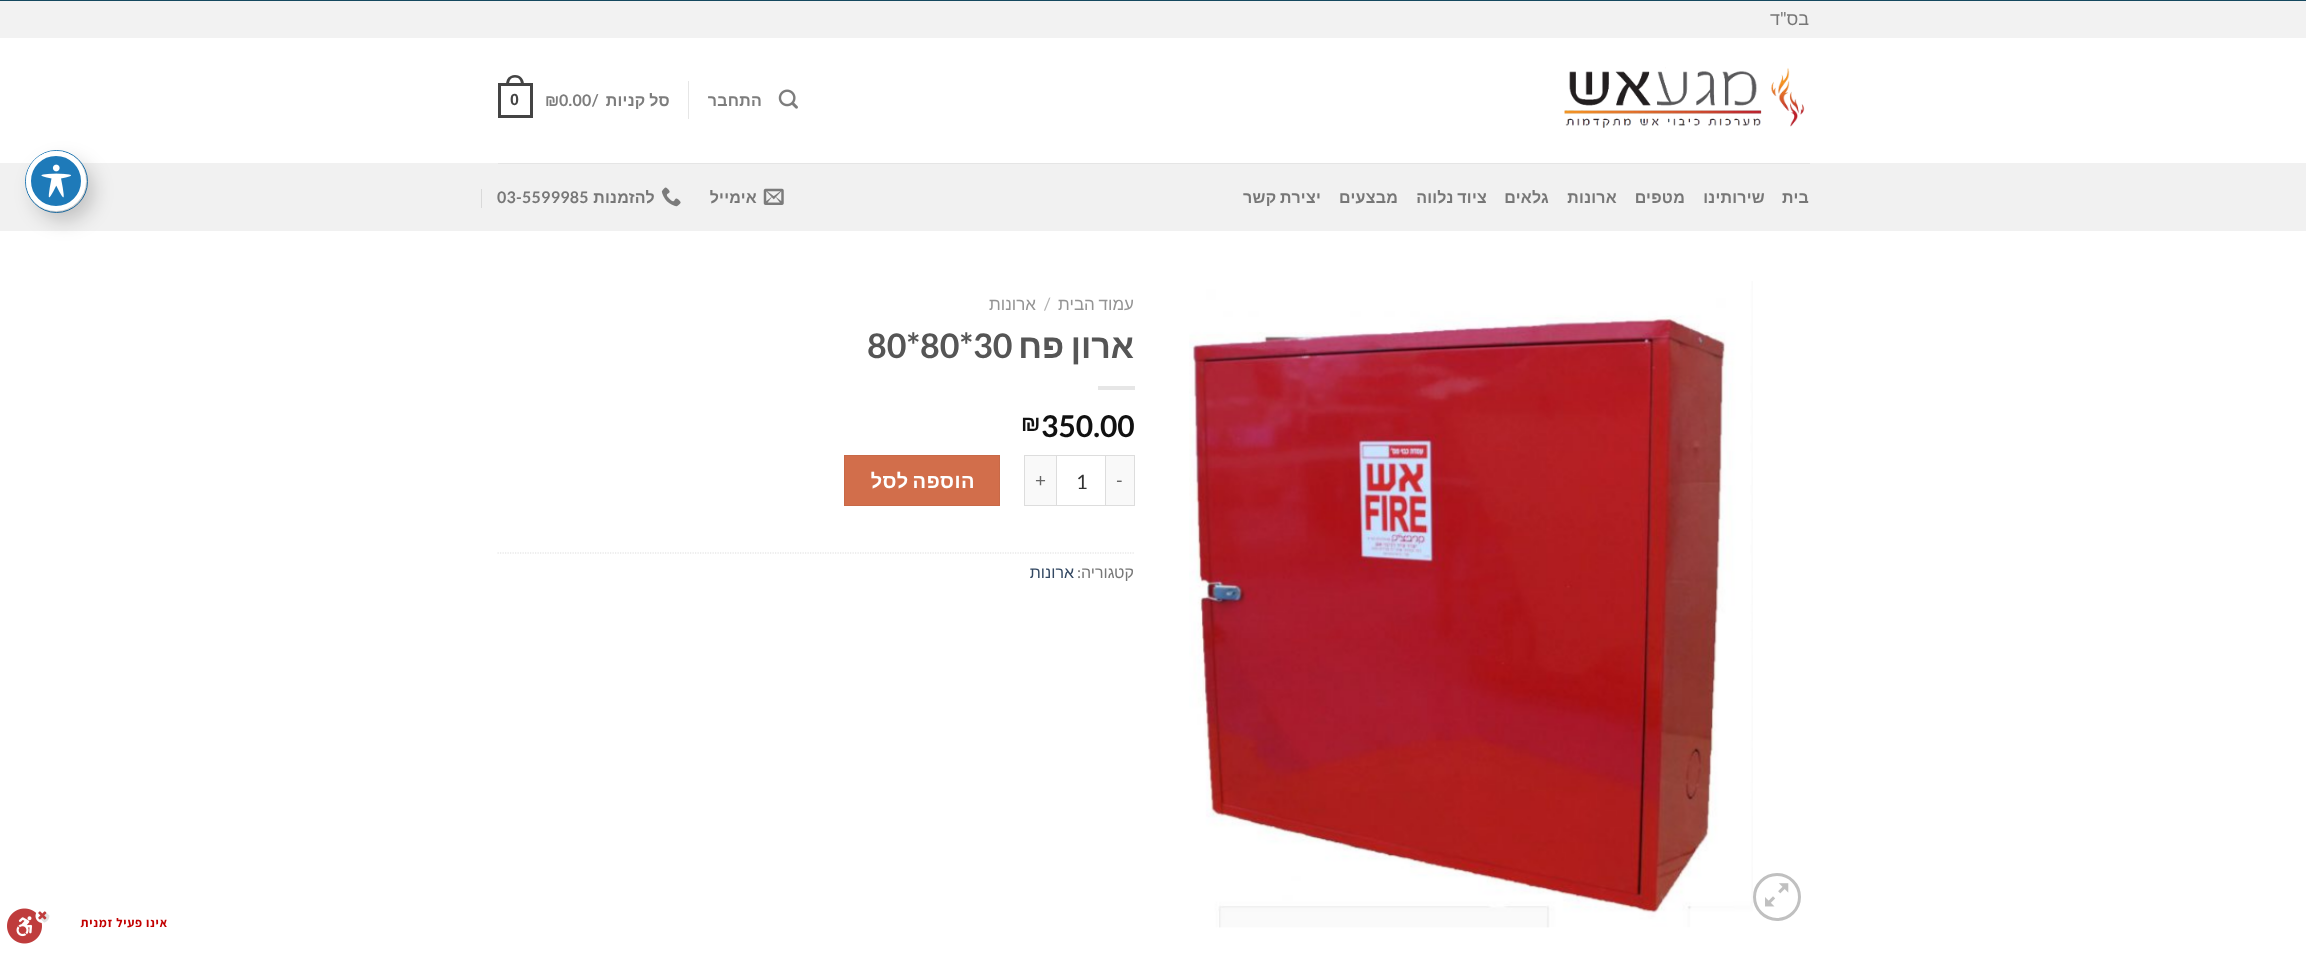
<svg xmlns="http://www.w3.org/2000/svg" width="2306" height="966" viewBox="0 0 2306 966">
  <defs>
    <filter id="blur1" x="-50%" y="-200%" width="200%" height="500%"><feGaussianBlur stdDeviation="10"/></filter>
  </defs>
  <rect width="100%" height="100%" fill="#ffffff"/>
  <rect x="0" y="1" width="2306" height="37" fill="#f2f2f2"/>
  <text x="1809" y="25" font-family="Liberation Sans" font-size="18" direction="rtl" fill="#777777">בס</text>
  <text x="1787" y="25" font-family="Lato" font-size="18" direction="rtl" fill="#777777">"</text>
  <text x="1780" y="25" font-family="Liberation Sans" font-size="18" direction="rtl" fill="#777777">ד</text>
  <image x="1564" y="67" width="241" height="61" href="img1.png"/>
  <image x="778" y="89" width="20" height="20" href="img2.png"/>
  <text x="762" y="106" font-family="Liberation Sans" font-size="16" font-weight="bold" letter-spacing="0.25" direction="rtl" fill="#7d7d7d">התחבר</text>
  <rect x="688" y="81" width="1" height="38" fill="#e6e6e6"/>
  <text x="670" y="106" word-spacing="-1" font-family="Liberation Sans" font-size="16" font-weight="bold" letter-spacing="0.25" direction="rtl" fill="#7d7d7d">סל קניות</text>
  <text x="592" y="106" font-family="Lato" font-size="16" font-weight="bold" letter-spacing="0.25" fill="#7d7d7d">/</text>
  <text x="559" y="106" font-family="Lato" font-size="16" font-weight="bold" letter-spacing="0.25" fill="#7d7d7d">0.00</text>
  <text x="545" y="106" font-family="Liberation Sans" font-size="16" font-weight="bold" letter-spacing="0.25" fill="#7d7d7d">₪</text>
  <rect x="499.5" y="84.5" width="32" height="32" fill="none" stroke="#444444" stroke-width="3"/>
  <path d="M515 75C521 75 524 79.5 524 85H506C506 79.5 509 75 515 75ZM515 77.5C519.5 77.5 521 81 521 85H509C509 81 510.5 77.5 515 77.5Z" fill="#444444" fill-rule="evenodd"/>
  <text x="510" y="105" font-family="Liberation Sans" font-size="16" font-weight="bold" letter-spacing="0.25" fill="#444444">0</text>
  <rect x="0" y="163" width="2306" height="68" fill="#f1f1f1"/>
  <rect x="498" y="163" width="1312" height="1" fill="#e5e5e5"/>
  <text x="1809" y="203" font-family="Liberation Sans" font-size="16" font-weight="bold" letter-spacing="0.25" direction="rtl" fill="#777777">בית</text>
  <text x="1765" y="203" font-family="Liberation Sans" font-size="16" font-weight="bold" letter-spacing="0.25" direction="rtl" fill="#777777">שירותינו</text>
  <text x="1685" y="203" font-family="Liberation Sans" font-size="16" font-weight="bold" letter-spacing="0.25" direction="rtl" fill="#777777">מטפים</text>
  <text x="1617" y="203" font-family="Liberation Sans" font-size="16" font-weight="bold" letter-spacing="0.25" direction="rtl" fill="#777777">ארונות</text>
  <text x="1549" y="203" font-family="Liberation Sans" font-size="16" font-weight="bold" letter-spacing="0.25" direction="rtl" fill="#777777">גלאים</text>
  <text x="1487" y="203" word-spacing="-1" font-family="Liberation Sans" font-size="16" font-weight="bold" letter-spacing="0.25" direction="rtl" fill="#777777">ציוד נלווה</text>
  <text x="1398" y="203" font-family="Liberation Sans" font-size="16" font-weight="bold" letter-spacing="0.25" direction="rtl" fill="#777777">מבצעים</text>
  <text x="1321" y="203" word-spacing="-1" font-family="Liberation Sans" font-size="16" font-weight="bold" letter-spacing="0.25" direction="rtl" fill="#777777">יצירת קשר</text>
  <image x="763" y="188" width="21" height="17" href="img3.png"/>
  <text x="757" y="203" font-family="Liberation Sans" font-size="16" font-weight="bold" letter-spacing="0.25" direction="rtl" fill="#777777">אימייל</text>
  <image x="661" y="187" width="20" height="20" href="img4.png"/>
  <text x="655" y="203" font-family="Liberation Sans" font-size="16" font-weight="bold" letter-spacing="0.25" direction="rtl" fill="#777777">להזמנות</text>
  <text x="497" y="203" font-family="Lato" font-size="16" font-weight="bold" letter-spacing="0.25" fill="#777777">03-5599985</text>
  <rect x="481" y="189" width="1" height="19" fill="#d9d9d9"/>
  <circle cx="1777" cy="897" r="22.5" fill="none" stroke="#c0c0c0" stroke-width="3"/>
  <image x="1765" y="883" width="24" height="24" href="img5.png"/>
  <image x="1189" y="281" width="564" height="647" href="img6.png"/>
  <text x="1134" y="310" word-spacing="-1" font-family="Liberation Sans" font-size="17" direction="rtl" fill="#949494">עמוד הבית</text>
  <text x="1044" y="310" font-family="Lato" font-size="17" fill="#b2b2b2">/</text>
  <text x="1036" y="310" font-family="Liberation Sans" font-size="17" direction="rtl" fill="#949494">ארונות</text>
  <text x="1134" y="358" word-spacing="-3" font-family="Liberation Sans" font-size="34" font-weight="bold" direction="rtl" fill="#555555">ארון פח</text>
  <text x="867" y="358" font-family="Lato" font-size="34" font-weight="bold" fill="#555555">80*80*30</text>
  <rect x="1098" y="386" width="37" height="4" fill="#e6e6e6"/>
  <text x="1041" y="437" font-family="Lato" font-size="30" font-weight="bold" fill="#111111">350.00</text>
  <text x="1021" y="431" font-family="Liberation Sans" font-size="22" font-weight="bold" fill="#111111">₪</text>
  <rect x="1106" y="456" width="28" height="49" fill="#f9f9f9"/>
  <rect x="1106" y="455" width="29" height="1" fill="#dddddd"/>
  <rect x="1134" y="455" width="1" height="51" fill="#dddddd"/>
  <rect x="1106" y="505" width="29" height="1" fill="#dddddd"/>
  <text x="1116" y="487" font-family="Lato" font-size="19" letter-spacing="1" fill="#666666">-</text>
  <rect x="1056.5" y="455.5" width="49" height="50" fill="none" stroke="#dddddd"/>
  <text x="1076" y="489" font-family="Lato" font-size="20" fill="#333333">1</text>
  <rect x="1025" y="456" width="31" height="49" fill="#f9f9f9"/>
  <rect x="1024" y="455" width="32" height="1" fill="#dddddd"/>
  <rect x="1024" y="505" width="32" height="1" fill="#dddddd"/>
  <rect x="1024" y="455" width="1" height="51" fill="#dddddd"/>
  <text x="1035" y="487" font-family="Lato" font-size="19" letter-spacing="1" fill="#666666">+</text>
  <rect x="844.5" y="455.5" width="155" height="50" fill="#d26e4b" stroke="#c86947"/>
  <text x="975" y="488" word-spacing="-2" font-family="Liberation Sans" font-size="20" font-weight="bold" letter-spacing="0.5" direction="rtl" fill="#ffffff">הוספה לסל</text>
  <path d="M497.5 553H1135" fill="none" stroke="#dddddd" stroke-width="1.2" stroke-dasharray="1.25 1.25"/>
  <text x="1134" y="578" font-family="Liberation Sans" font-size="16" direction="rtl" fill="#777777">קטגוריה</text>
  <text x="1081" y="578" font-family="Lato" font-size="16" direction="rtl" fill="#777777">:</text>
  <text x="1074" y="578" font-family="Liberation Sans" font-size="16" direction="rtl" fill="#334862">ארונות</text>
  <circle cx="56.5" cy="181.5" r="31" fill="none" stroke="#1e7ab9"/>
  <rect x="34" y="161" width="60" height="60" rx="30" fill="#000000" fill-opacity="0.2" filter="url(#blur1)"/>
  <circle cx="56" cy="181" r="27.5" fill="#1e7ab9" stroke="#ffffff" stroke-width="5"/>
  <image x="41" y="164" width="30" height="34" href="img7.png"/>
  <rect x="0" y="0" width="2306" height="1" fill="#15495f"/>
  <text x="168" y="927" font-family="Assistant" font-size="12.5" font-weight="bold" letter-spacing="0.75" direction="rtl" fill="#c20000">אינו פעיל זמנית</text>
  <image x="7" y="908" width="43" height="36" href="img8.png"/>
</svg>
